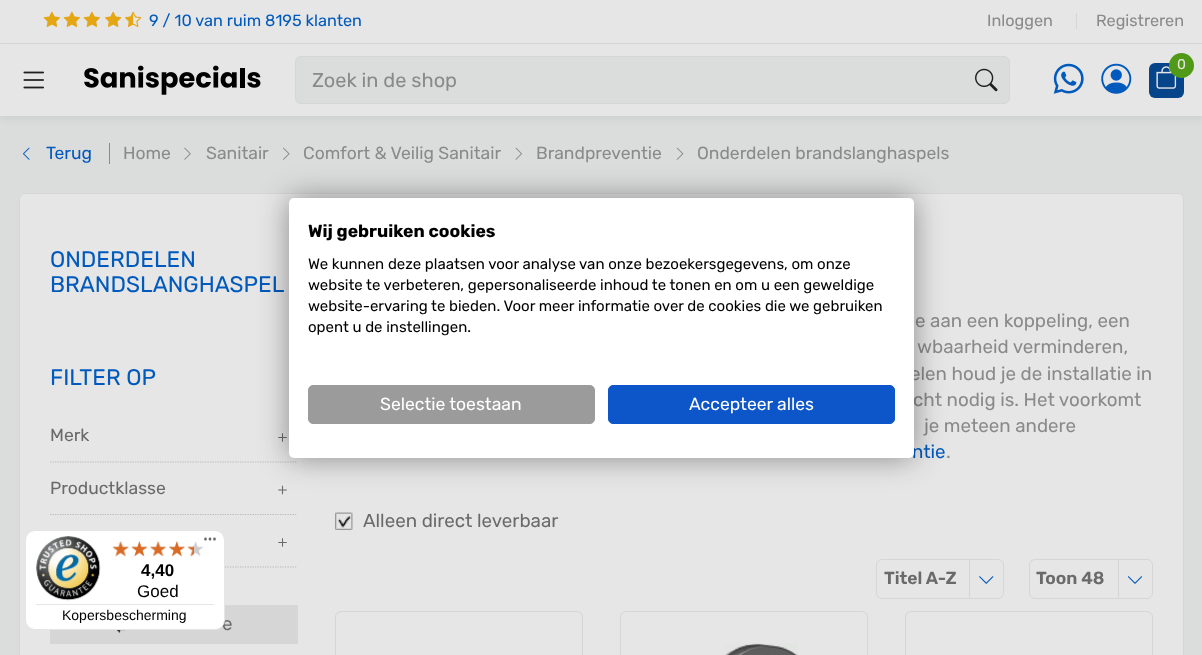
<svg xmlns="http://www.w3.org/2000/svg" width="1202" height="655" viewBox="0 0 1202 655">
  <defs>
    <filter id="blur1" x="-50%" y="-200%" width="200%" height="500%"><feGaussianBlur stdDeviation="3"/></filter>
    <filter id="blur2" x="-50%" y="-200%" width="200%" height="500%"><feGaussianBlur stdDeviation="15"/></filter>
  </defs>
  <rect width="100%" height="100%" fill="#dbdddd"/>
  <rect x="0" y="0" width="1202" height="43" fill="#e6e6e6"/>
  <rect x="0" y="43" width="1202" height="1" fill="#d6d6d6"/>
  <image x="43" y="11" width="17" height="16" href="img1.png"/>
  <image x="63" y="11" width="17" height="16" href="img1.png"/>
  <image x="83" y="11" width="17" height="16" href="img1.png"/>
  <image x="105" y="11" width="17" height="16" href="img2.png"/>
  <image x="125" y="11" width="17" height="16" href="img3.png"/>
  <text x="149" y="26" font-family="Rubik" font-size="16.25" font-weight="300" fill="#0059bc">9 / 10 van ruim 8195 klanten</text>
  <text x="987" y="26" font-family="Rubik" font-size="16.25" font-weight="300" fill="#8a8a8a">Inloggen</text>
  <rect x="1076" y="13" width="1" height="16" fill="#d6d6d6"/>
  <text x="1096" y="26" font-family="Rubik" font-size="16.25" font-weight="300" fill="#8a8a8a">Registreren</text>
  <rect x="0" y="48" width="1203" height="72" fill="#000000" fill-opacity="0.05" filter="url(#blur1)"/>
  <rect x="0" y="44" width="1202" height="72" fill="#e6e6e6"/>
  <image x="23" y="71" width="21" height="18" href="img4.png"/>
  <image x="84" y="65" width="177" height="30" href="img5.png"/>
  <rect x="295.5" y="56.5" width="714" height="47" rx="5.5" fill="#dbdddd" stroke="#d6d6d6"/>
  <text x="312" y="87" font-family="Rubik" font-size="20" font-weight="300" fill="#8a8a8a">Zoek in de shop</text>
  <image x="975" y="68" width="23" height="24" href="img6.png"/>
  <image x="1053" y="63" width="31" height="31" href="img7.png"/>
  <image x="1101" y="63" width="31" height="31" href="img8.png"/>
  <rect x="1149" y="63" width="35" height="35" rx="6" fill="#07458b"/>
  <image x="1156" y="66" width="21" height="23" href="img9.png"/>
  <circle cx="1181.5" cy="65.5" r="12.5" fill="#519a17"/>
  <text x="1177" y="69" font-family="Rubik" font-size="14" font-weight="300" fill="#e6e6e6">0</text>
  <rect x="109" y="143" width="1" height="21" fill="#8a8a8a"/>
  <image x="23" y="147" width="7" height="13" href="img10.png"/>
  <text x="46" y="159" font-family="Rubik" font-size="17.5" font-weight="300" fill="#0059bc">Terug</text>
  <text x="123" y="159" font-family="Rubik" font-size="17.5" font-weight="300" fill="#8a8a8a">Home</text>
  <image x="184" y="147" width="7" height="13" href="img11.png"/>
  <text x="206" y="159" font-family="Rubik" font-size="17.5" font-weight="300" fill="#8a8a8a">Sanitair</text>
  <image x="283" y="147" width="7" height="13" href="img12.png"/>
  <text x="303" y="159" font-family="Rubik" font-size="17.5" font-weight="300" fill="#8a8a8a">Comfort &amp; Veilig Sanitair</text>
  <image x="515" y="147" width="7" height="13" href="img13.png"/>
  <text x="536" y="159" font-family="Rubik" font-size="17.5" font-weight="300" fill="#8a8a8a">Brandpreventie</text>
  <image x="676" y="147" width="8" height="13" href="img14.png"/>
  <text x="697" y="159" font-family="Rubik" font-size="17.5" font-weight="300" fill="#8a8a8a">Onderdelen brandslanghaspels</text>
  <rect x="19.5" y="193.5" width="1164" height="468" rx="5.5" fill="#e6e6e6" stroke="#d6d6d6"/>
  <text x="50" y="267" font-family="Rubik" font-size="22.5" font-weight="300" fill="#0059bc">ONDERDELEN</text>
  <text x="50" y="292" font-family="Rubik" font-size="22.5" font-weight="300" fill="#0059bc">BRANDSLANGHASPEL</text>
  <text x="50" y="385" font-family="Rubik" font-size="22.5" font-weight="300" fill="#0059bc">FILTER OP</text>
  <path d="M50 462H297.5" fill="none" stroke="#b8b8b8" stroke-width="1.2" stroke-dasharray="1.25 1.25"/>
  <text x="50" y="441" font-family="Rubik" font-size="17.5" font-weight="300" fill="#6a6a6a">Merk</text>
  <image x="278" y="433" width="9" height="9" href="img15.png"/>
  <path d="M50 514.5H297.5" fill="none" stroke="#b8b8b8" stroke-width="1.2" stroke-dasharray="1.25 1.25"/>
  <text x="50" y="494" font-family="Rubik" font-size="17.5" font-weight="300" fill="#6a6a6a">Productklasse</text>
  <image x="278" y="485" width="9" height="10" href="img16.png"/>
  <path d="M50 567H297.5" fill="none" stroke="#b8b8b8" stroke-width="1.2" stroke-dasharray="1.25 1.25"/>
  <image x="278" y="538" width="9" height="9" href="img15.png"/>
  <rect x="50" y="605" width="248" height="39" fill="#d6d6d6"/>
  <text x="222" y="630" font-family="Rubik" font-size="18.75" font-weight="300" fill="#6a6a6a">e</text>
  <image x="116" y="630" width="9" height="3" href="img17.png"/>
  <text x="915" y="327" font-family="Rubik" font-size="18.75" font-weight="300" fill="#8a8a8a">e aan een koppeling, een</text>
  <text x="917" y="353" font-family="Rubik" font-size="18.75" font-weight="300" fill="#8a8a8a">wbaarheid verminderen,</text>
  <text x="910" y="380" font-family="Rubik" font-size="18.75" font-weight="300" fill="#8a8a8a">elen houd je de installatie in</text>
  <text x="913" y="406" font-family="Rubik" font-size="18.75" font-weight="300" fill="#8a8a8a">cht nodig is. Het voorkomt</text>
  <text x="924" y="432" font-family="Rubik" font-size="18.75" font-weight="300" fill="#8a8a8a">je meteen andere</text>
  <text x="912" y="458" font-family="Rubik" font-size="18.75" font-weight="300" fill="#0059bc">ntie</text>
  <text x="946" y="458" font-family="Rubik" font-size="18.75" font-weight="300" fill="#8a8a8a">.</text>
  <image x="335" y="512" width="18" height="18" href="img18.png"/>
  <text x="363" y="527" font-family="Rubik" font-size="18.75" font-weight="300" fill="#6a6a6a">Alleen direct leverbaar</text>
  <rect x="876.5" y="559.5" width="127" height="39" rx="5.5" fill="none" stroke="#d6d6d6"/>
  <text x="884" y="584" font-family="Rubik" font-size="17.5" font-weight="600" fill="#6a6a6a">Titel A-Z</text>
  <rect x="969" y="560" width="1" height="38" fill="#d6d6d6"/>
  <image x="979" y="576" width="15" height="8" href="img19.png"/>
  <rect x="1029.5" y="559.5" width="123" height="39" rx="5.5" fill="none" stroke="#d6d6d6"/>
  <text x="1036" y="584" font-family="Rubik" font-size="17.5" font-weight="600" fill="#6a6a6a">Toon 48</text>
  <rect x="1118" y="560" width="1" height="38" fill="#d6d6d6"/>
  <image x="1127" y="576" width="16" height="8" href="img20.png"/>
  <rect x="335.5" y="611.5" width="247" height="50" rx="5.5" fill="none" stroke="#d6d6d6"/>
  <rect x="620.5" y="611.5" width="247" height="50" rx="5.5" fill="none" stroke="#d6d6d6"/>
  <image x="725" y="643" width="73" height="12" href="img21.png"/>
  <rect x="905.5" y="611.5" width="247" height="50" rx="5.5" fill="none" stroke="#d6d6d6"/>
  <rect x="25.5" y="530.5" width="199" height="99" rx="9.5" fill="#ffffff" stroke="#e5e5e5"/>
  <image x="204" y="537" width="12" height="4" href="img22.png"/>
  <image x="36" y="536" width="65" height="65" href="img23.png"/>
  <image x="113" y="541" width="16" height="16" href="img29.png"/>
  <image x="112" y="541" width="17" height="16" href="img24.png"/>
  <image x="132" y="541" width="15" height="15" href="img30.png"/>
  <image x="131" y="541" width="16" height="16" href="img25.png"/>
  <image x="150" y="541" width="16" height="15" href="img31.png"/>
  <image x="150" y="541" width="17" height="16" href="img26.png"/>
  <image x="169" y="541" width="16" height="15" href="img32.png"/>
  <image x="169" y="541" width="16" height="16" href="img27.png"/>
  <image x="188" y="541" width="16" height="16" href="img33.png"/>
  <image x="187" y="545" width="7" height="12" href="img28.png"/>
  <text x="141" y="576" font-family="Liberation Sans" font-size="17" font-weight="bold" fill="#000000">4,40</text>
  <text x="137" y="597" font-family="Liberation Sans" font-size="17" fill="#000000">Goed</text>
  <rect x="36" y="604" width="178" height="1" fill="#e5e5e5"/>
  <text x="62" y="620" font-family="Liberation Sans" font-size="14" fill="#000000">Kopersbescherming</text>
  <rect x="289" y="198" width="625" height="260" rx="5" fill="#000000" fill-opacity="0.4" filter="url(#blur2)"/>
  <rect x="289" y="198" width="625" height="260" rx="5" fill="#ffffff"/>
  <text x="308" y="237" font-family="'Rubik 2'" font-size="17.5" font-weight="300" fill="#000000">Wij gebruiken cookies</text>
  <text x="308" y="269" font-family="Rubik" font-size="15" font-weight="300" fill="#000000">We kunnen deze plaatsen voor analyse van onze bezoekersgegevens, om onze</text>
  <text x="308" y="290" font-family="Rubik" font-size="15" font-weight="300" fill="#000000">website te verbeteren, gepersonaliseerde inhoud te tonen en om u een geweldige</text>
  <text x="308" y="311" font-family="Rubik" font-size="15" font-weight="300" fill="#000000">website-ervaring te bieden. Voor meer informatie over de cookies die we gebruiken</text>
  <text x="308" y="332" font-family="Rubik" font-size="15" font-weight="300" fill="#000000">opent u de instellingen.</text>
  <rect x="308.5" y="385.5" width="286" height="38" rx="4.5" fill="#9b9b9b" stroke="#9b9b9b"/>
  <text x="380" y="410" font-family="Rubik" font-size="17.5" font-weight="300" fill="#ffffff">Selectie toestaan</text>
  <rect x="608.5" y="385.5" width="286" height="38" rx="4.5" fill="#0d56c9" stroke="#0d56c9"/>
  <text x="689" y="410" font-family="Rubik" font-size="17.5" font-weight="300" fill="#ffffff">Accepteer alles</text>
</svg>
